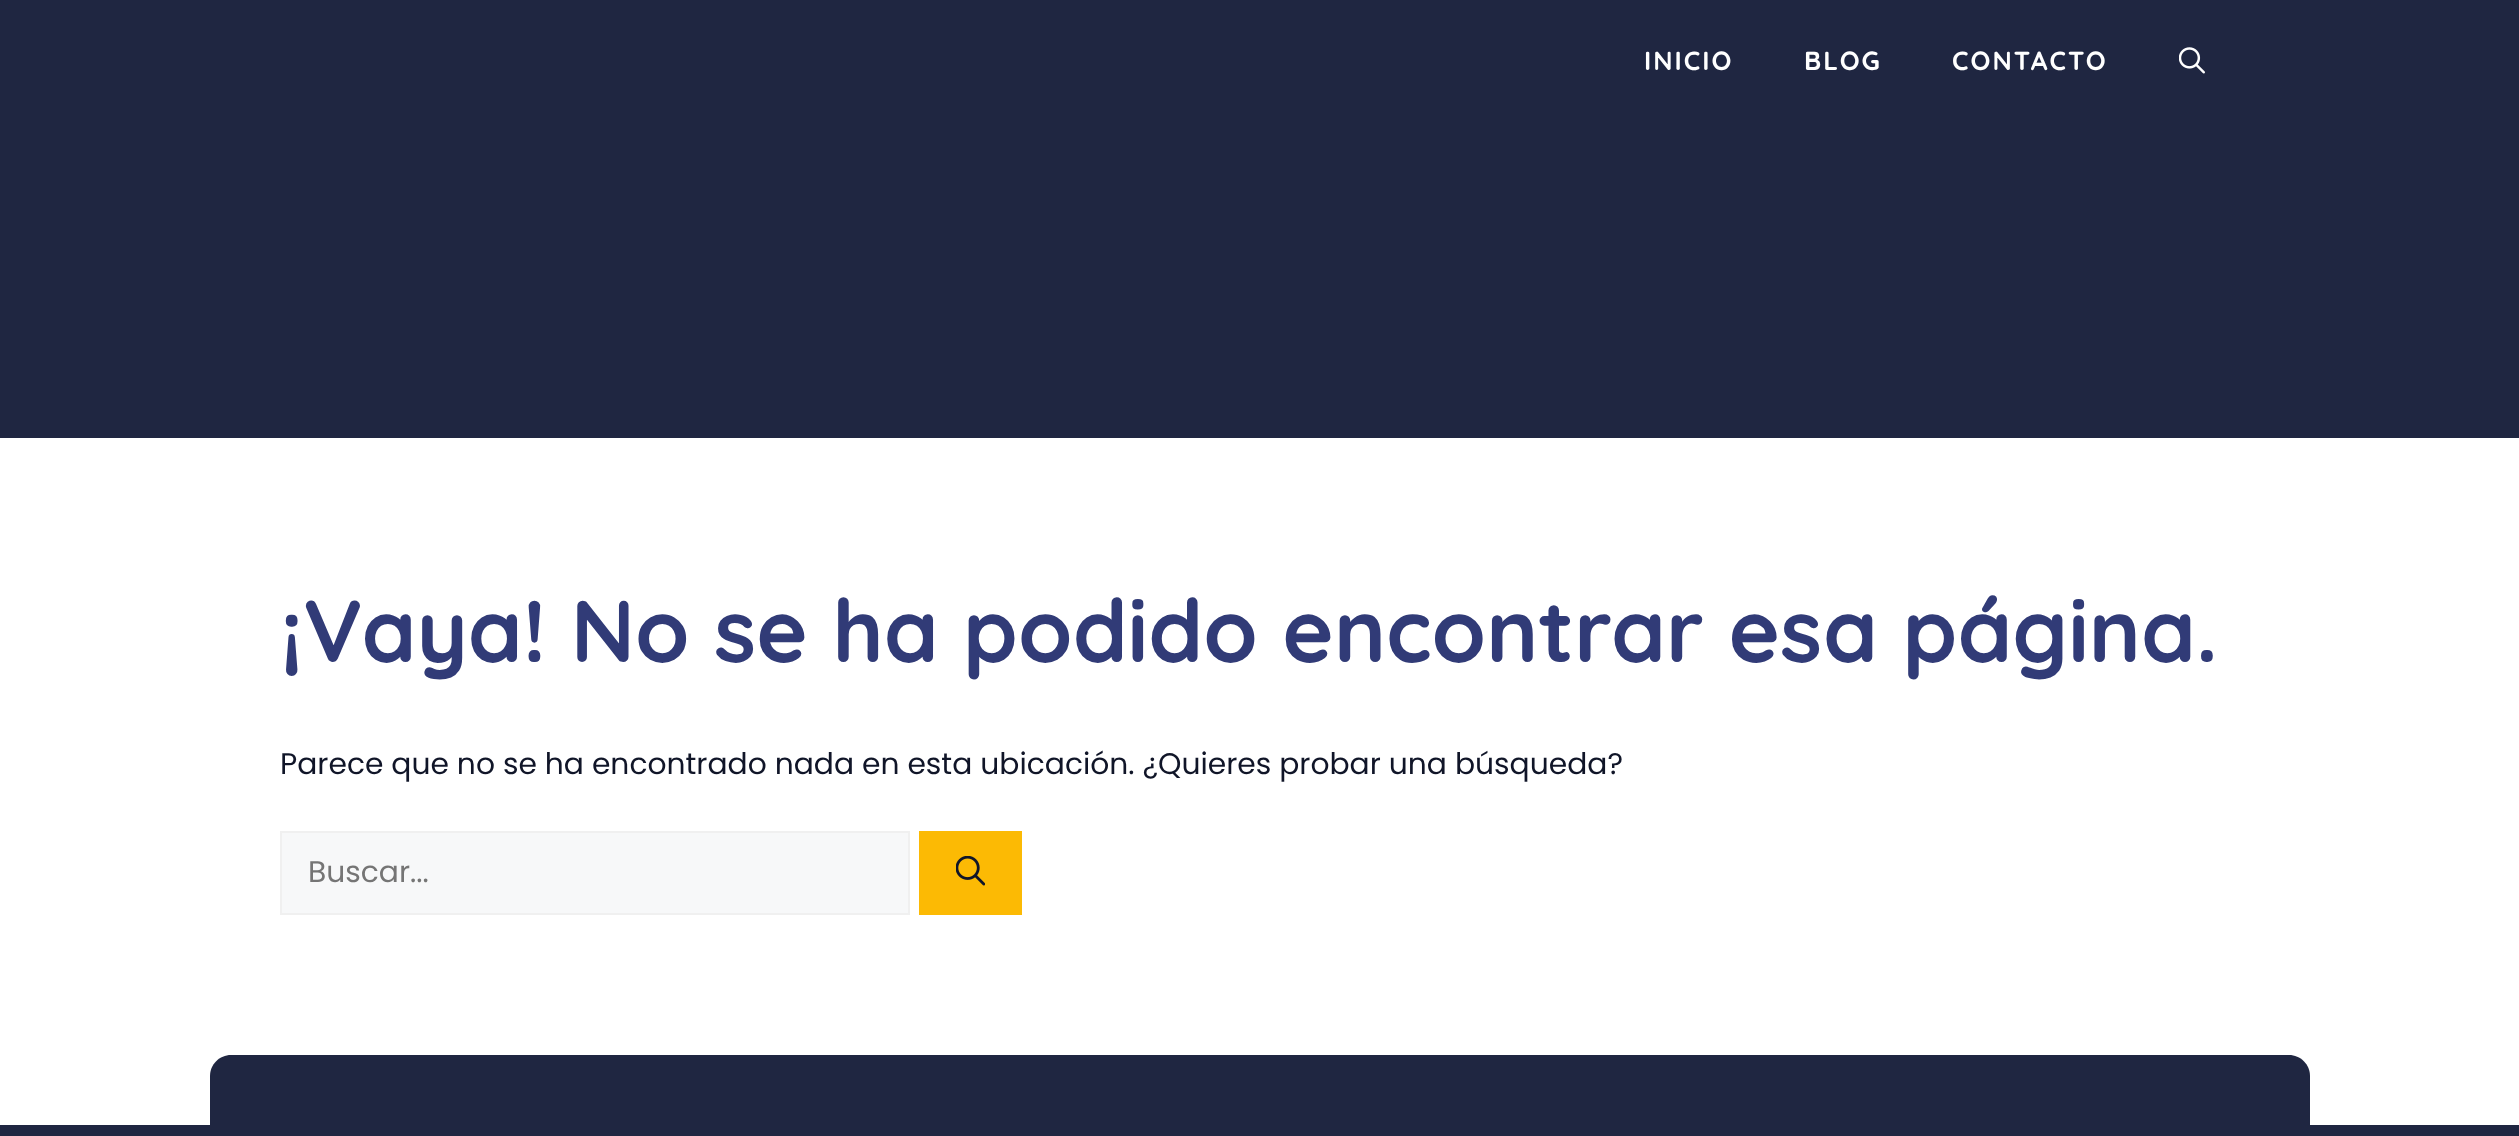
<svg xmlns="http://www.w3.org/2000/svg" width="2519" height="1136" viewBox="0 0 2519 1136">
  <rect width="100%" height="100%" fill="#ffffff"/>
  <rect x="0" y="0" width="2519" height="438" fill="#1f2641"/>
  <text x="1644" y="70" font-family="Quicksand" font-size="26.25" font-weight="bold" letter-spacing="2" fill="#ffffff">INICIO</text>
  <text x="1804" y="70" font-family="Quicksand" font-size="26.25" font-weight="bold" letter-spacing="2" fill="#ffffff">BLOG</text>
  <text x="1952" y="70" font-family="Quicksand" font-size="26.25" font-weight="bold" letter-spacing="2" fill="#ffffff">CONTACTO</text>
  <image x="2179" y="47" width="26" height="27" href="img1.png"/>
  <text x="280" y="662" font-family="Quicksand" font-size="87.5" font-weight="bold" fill="#313b77">¡Vaya! No se ha podido encontrar esa página.</text>
  <text x="280" y="774" font-family="Poppins" font-size="29.75" fill="#101528">Parece que no se ha encontrado nada en esta ubicación. ¿Quieres probar una búsqueda?</text>
  <rect x="281" y="832" width="628" height="82" fill="#f7f8f9" stroke="#f0f0f0" stroke-width="2"/>
  <text x="308" y="882" font-family="Poppins" font-size="29.75" fill="#757575">Buscar...</text>
  <rect x="919" y="831" width="103" height="84" fill="#fcba04"/>
  <image x="956" y="856" width="29" height="30" href="img2.png"/>
  <rect x="0" y="1125" width="2519" height="11" fill="#1f2641"/>
  <path d="M231 1055H2289C2300.5 1055 2310 1064.5 2310 1076V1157H210V1076C210 1064.5 219.5 1055 231 1055Z" fill="#1f2641"/>
</svg>
